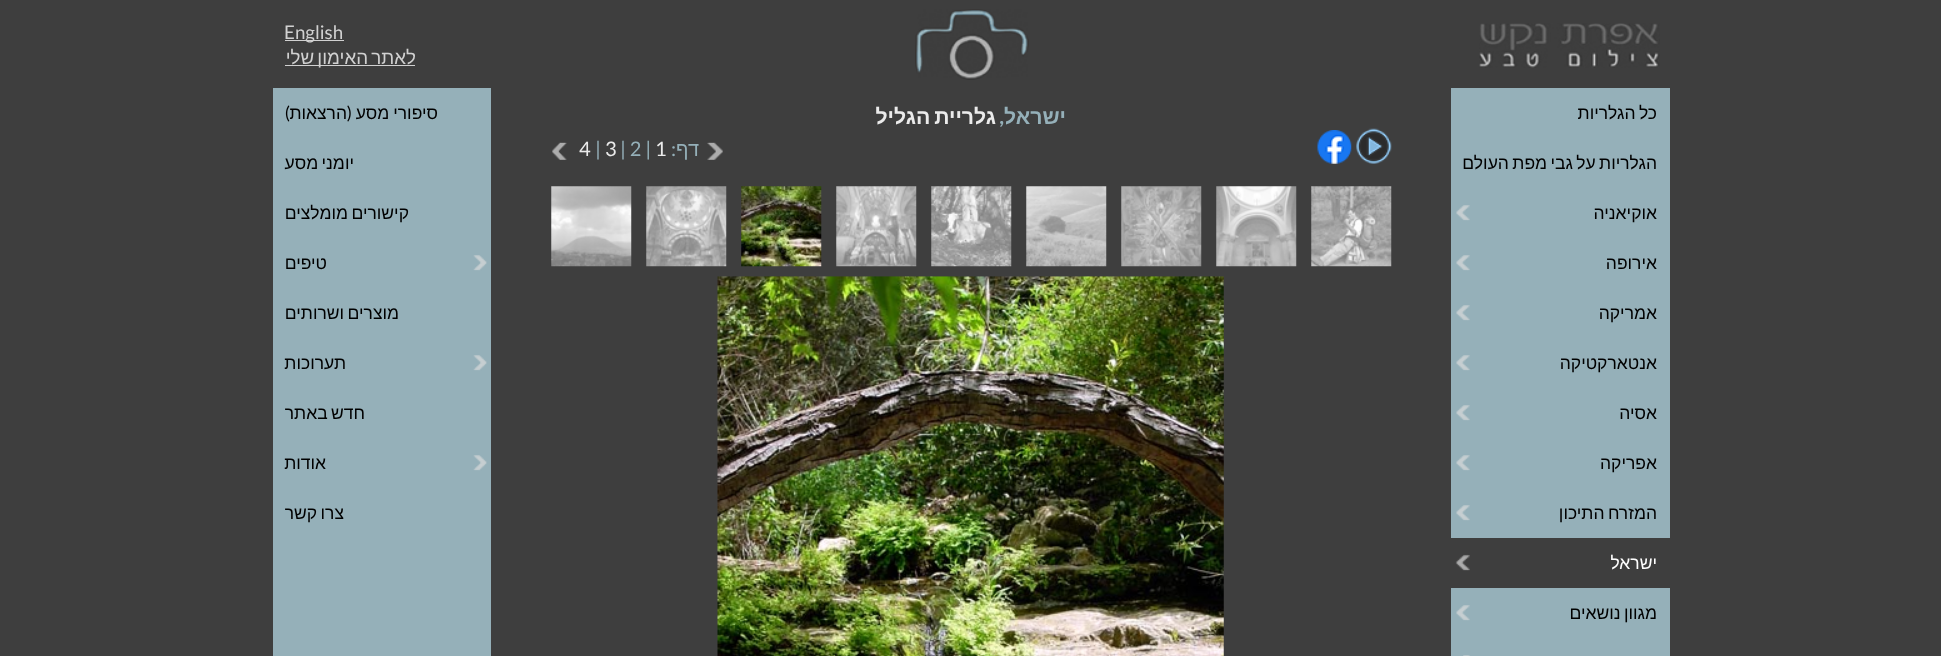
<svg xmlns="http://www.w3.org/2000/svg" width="1941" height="656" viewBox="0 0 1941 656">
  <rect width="100%" height="100%" fill="#3e3e3e"/>
  <image x="915" y="9" width="114" height="71" href="img1.png"/>
  <image x="1479" y="23" width="181" height="45" href="img2.png"/>
  <rect x="285" y="40" width="59" height="1" fill="#d1d1d1"/>
  <text x="284" y="39" font-family="Lato" font-size="18.75" fill="#d1d1d1">English</text>
  <rect x="285" y="65" width="130" height="1" fill="#d1d1d1"/>
  <text x="416" y="64" word-spacing="-2" font-family="Liberation Sans" font-size="18.75" direction="rtl" fill="#d1d1d1">לאתר האימון שלי</text>
  <rect x="1451" y="88" width="219" height="568" fill="#95b0b9"/>
  <text x="1657" y="119" word-spacing="-1.5" font-family="Liberation Sans" font-size="17.5" direction="rtl" fill="#000000">כל הגלריות</text>
  <text x="1657" y="169" word-spacing="-1.5" font-family="Liberation Sans" font-size="17.5" direction="rtl" fill="#000000">הגלריות על גבי מפת העולם</text>
  <image x="1456" y="205" width="14" height="16" href="img3.png"/>
  <text x="1657" y="219" font-family="Liberation Sans" font-size="17.5" direction="rtl" fill="#000000">אוקיאניה</text>
  <image x="1456" y="255" width="14" height="16" href="img3.png"/>
  <text x="1657" y="269" font-family="Liberation Sans" font-size="17.5" direction="rtl" fill="#000000">אירופה</text>
  <image x="1456" y="305" width="14" height="16" href="img3.png"/>
  <text x="1657" y="319" font-family="Liberation Sans" font-size="17.5" direction="rtl" fill="#000000">אמריקה</text>
  <image x="1456" y="355" width="14" height="16" href="img3.png"/>
  <text x="1657" y="369" font-family="Liberation Sans" font-size="17.5" direction="rtl" fill="#000000">אנטארקטיקה</text>
  <image x="1456" y="405" width="14" height="16" href="img3.png"/>
  <text x="1657" y="419" font-family="Liberation Sans" font-size="17.5" direction="rtl" fill="#000000">אסיה</text>
  <image x="1456" y="455" width="14" height="16" href="img3.png"/>
  <text x="1657" y="469" font-family="Liberation Sans" font-size="17.5" direction="rtl" fill="#000000">אפריקה</text>
  <image x="1456" y="505" width="14" height="16" href="img3.png"/>
  <text x="1657" y="519" word-spacing="-1.5" font-family="Liberation Sans" font-size="17.5" direction="rtl" fill="#000000">המזרח התיכון</text>
  <rect x="1451" y="538" width="219" height="50" fill="#3e3e3e"/>
  <image x="1455" y="554" width="15" height="17" href="img4.png"/>
  <text x="1657" y="569" font-family="Liberation Sans" font-size="17.5" direction="rtl" fill="#ffffff">ישראל</text>
  <image x="1456" y="605" width="14" height="16" href="img3.png"/>
  <text x="1657" y="619" word-spacing="-1.5" font-family="Liberation Sans" font-size="17.5" direction="rtl" fill="#000000">מגוון נושאים</text>
  <image x="1463" y="655" width="7" height="1" href="img5.png"/>
  <rect x="273" y="88" width="218" height="568" fill="#95b0b9"/>
  <text x="438" y="119" word-spacing="-1" font-family="Liberation Sans" font-size="17.5" direction="rtl" fill="#000000">סיפורי מסע</text>
  <text x="352" y="119" font-family="Lato" font-size="17.5" direction="rtl" fill="#000000">(</text>
  <text x="347" y="119" font-family="Liberation Sans" font-size="17.5" direction="rtl" fill="#000000">הרצאות</text>
  <text x="290" y="119" font-family="Lato" font-size="17.5" direction="rtl" fill="#000000">)</text>
  <text x="354" y="169" word-spacing="-1.5" font-family="Liberation Sans" font-size="17.5" direction="rtl" fill="#000000">יומני מסע</text>
  <text x="409" y="219" word-spacing="-1.5" font-family="Liberation Sans" font-size="17.5" direction="rtl" fill="#000000">קישורים מומלצים</text>
  <image x="473" y="255" width="14" height="16" href="img6.png"/>
  <text x="327" y="269" font-family="Liberation Sans" font-size="17.5" direction="rtl" fill="#000000">טיפים</text>
  <text x="399" y="319" word-spacing="-1.5" font-family="Liberation Sans" font-size="17.5" direction="rtl" fill="#000000">מוצרים ושרותים</text>
  <image x="473" y="355" width="14" height="16" href="img6.png"/>
  <text x="346" y="369" font-family="Liberation Sans" font-size="17.5" direction="rtl" fill="#000000">תערוכות</text>
  <text x="365" y="419" word-spacing="-1.5" font-family="Liberation Sans" font-size="17.5" direction="rtl" fill="#000000">חדש באתר</text>
  <image x="473" y="455" width="14" height="16" href="img6.png"/>
  <text x="326" y="469" font-family="Liberation Sans" font-size="17.5" direction="rtl" fill="#000000">אודות</text>
  <text x="344" y="519" word-spacing="-1.5" font-family="Liberation Sans" font-size="17.5" direction="rtl" fill="#000000">צרו קשר</text>
  <text x="1066" y="124" font-family="Liberation Sans" font-size="21.25" font-weight="bold" direction="rtl" fill="#95b0b9">ישראל</text>
  <text x="1004" y="124" font-family="Lato" font-size="21.25" font-weight="bold" direction="rtl" fill="#95b0b9">,</text>
  <text x="996" y="124" word-spacing="-2" font-family="Liberation Sans" font-size="21.25" font-weight="bold" direction="rtl" fill="#ebebeb">גלריית הגליל</text>
  <image x="1356" y="128" width="36" height="36" href="img7.png"/>
  <image x="1317" y="130" width="35" height="34" href="img8.png"/>
  <image x="707" y="142" width="16" height="18" href="img9.png"/>
  <text x="699" y="156" font-family="Liberation Sans" font-size="20" direction="rtl" fill="#95b0b9">דף</text>
  <text x="676" y="156" font-family="Lato" font-size="20" direction="rtl" fill="#95b0b9">:</text>
  <text x="655" y="156" font-family="Lato" font-size="20" fill="#ebebeb">1</text>
  <text x="620" y="156" font-family="Lato" font-size="20" fill="#95b0b9">| 2 |</text>
  <text x="605" y="156" font-family="Lato" font-size="20" fill="#ebebeb">3</text>
  <text x="595" y="156" font-family="Lato" font-size="20" fill="#95b0b9">|</text>
  <text x="579" y="156" font-family="Lato" font-size="20" fill="#ebebeb">4</text>
  <image x="552" y="142" width="15" height="18" href="img10.png"/>
  <image x="1311" y="186" width="81" height="81" href="img11.png"/>
  <image x="1216" y="186" width="81" height="81" href="img12.png"/>
  <image x="1121" y="186" width="81" height="81" href="img13.png"/>
  <image x="1026" y="186" width="81" height="81" href="img14.png"/>
  <image x="931" y="186" width="81" height="81" href="img15.png"/>
  <image x="836" y="186" width="81" height="81" href="img16.png"/>
  <image x="741" y="186" width="81" height="81" href="img17.png"/>
  <image x="646" y="186" width="81" height="81" href="img18.png"/>
  <image x="551" y="186" width="81" height="81" href="img19.png"/>
  <image x="717" y="276" width="507" height="380" href="img20.png"/>
</svg>
